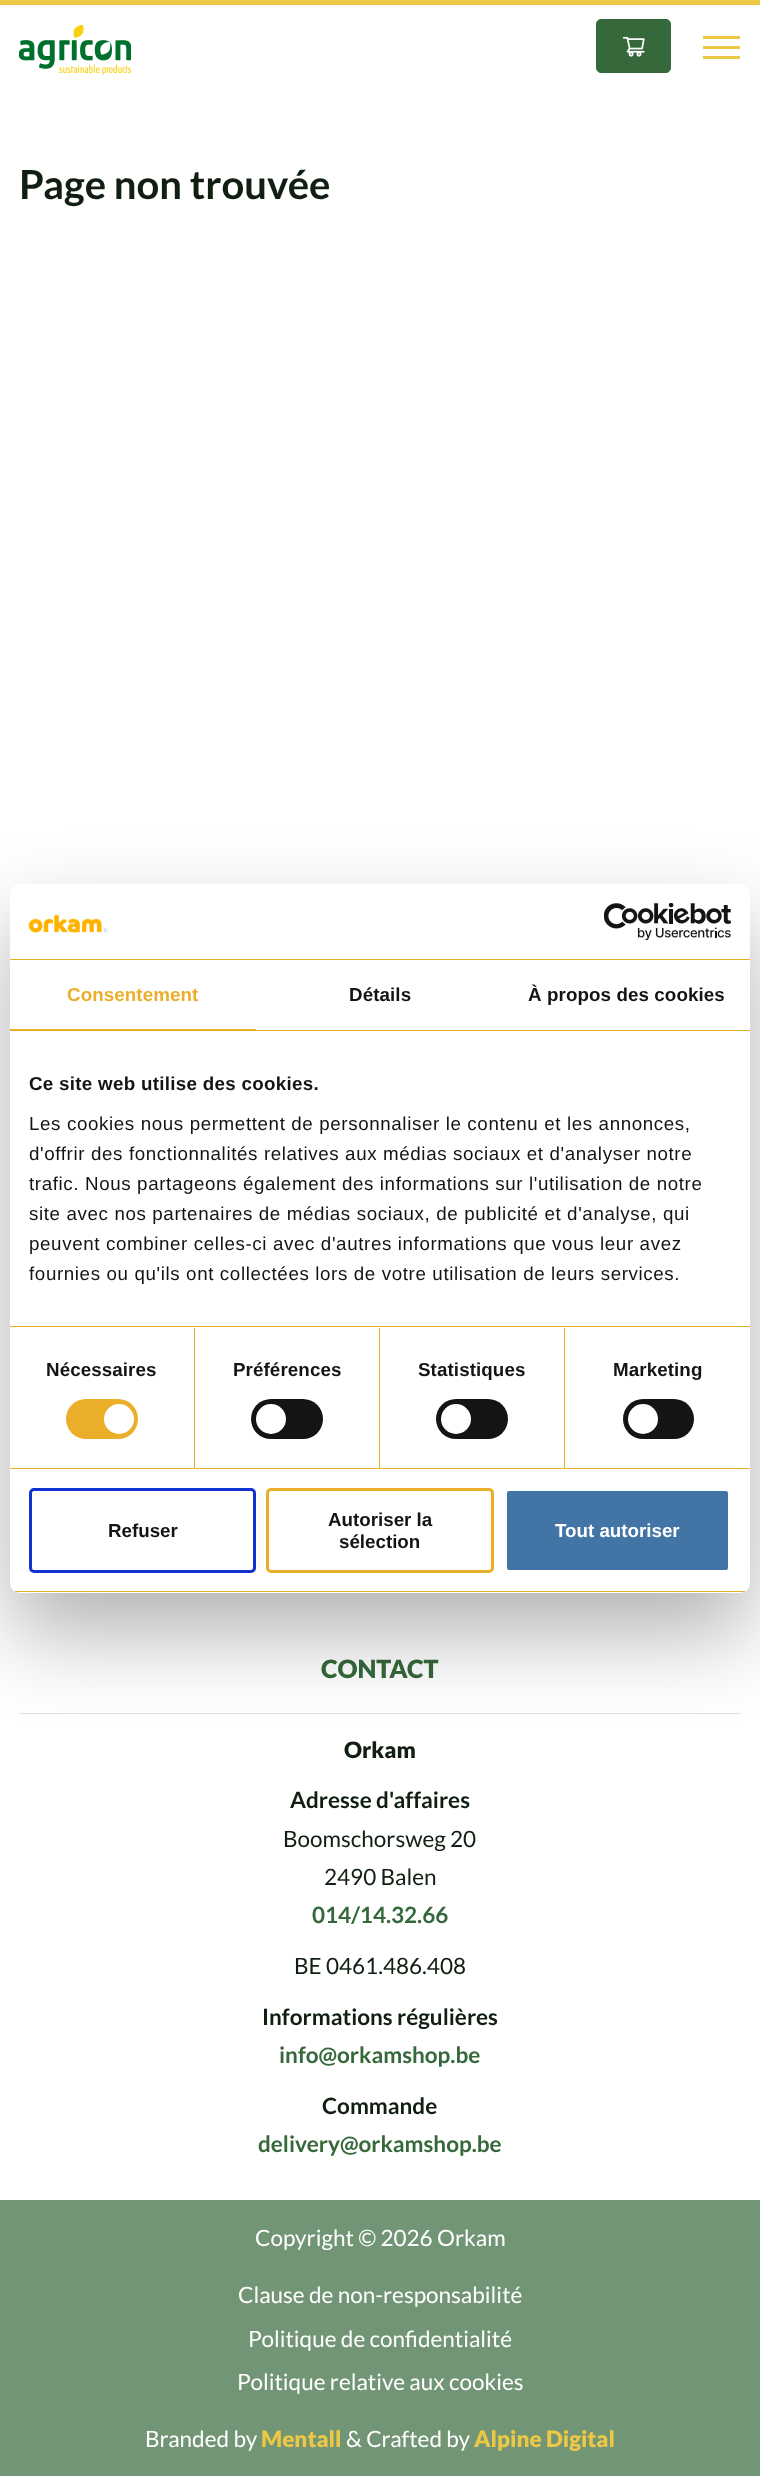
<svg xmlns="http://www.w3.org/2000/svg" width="760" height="2476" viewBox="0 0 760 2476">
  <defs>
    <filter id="blur1" x="-50%" y="-200%" width="200%" height="500%"><feGaussianBlur stdDeviation="42.5"/></filter>
    <clipPath id="clip1"><rect x="10" y="884" width="740" height="709" rx="10"/></clipPath>
  </defs>
  <rect width="100%" height="100%" fill="#ffffff"/>
  <rect x="0" y="0" width="760" height="5" fill="#edc845"/>
  <image x="19" y="25" width="112" height="50" href="img1.png"/>
  <rect x="596.5" y="19.5" width="74" height="53" rx="4.5" fill="#35683a" stroke="#35683a"/>
  <image x="623" y="36" width="22" height="21" href="img2.png"/>
  <rect x="703" y="46" width="37" height="3" fill="#edc845"/>
  <rect x="703" y="36" width="37" height="3" fill="#edc845"/>
  <rect x="703" y="56" width="37" height="3" fill="#edc845"/>
  <text x="19" y="199" font-family="Lato" font-size="40" font-weight="bold" fill="#101f12">Page non trouvée</text>
  <text x="321" y="1678" font-family="Lato" font-size="25" font-weight="900" fill="#35683a">CONTACT</text>
  <rect x="19" y="1713" width="722" height="1" fill="#e2e2e2"/>
  <text x="344" y="1758" font-family="Lato" font-size="22.5" font-weight="900" fill="#101f12">Orkam</text>
  <text x="290" y="1808" font-family="Lato" font-size="22.5" font-weight="bold" fill="#101f12">Adresse d'affaires</text>
  <text x="283" y="1847" font-family="Lato" font-size="22.5" fill="#101f12">Boomschorsweg 20</text>
  <text x="324" y="1885" font-family="Lato" font-size="22.5" fill="#101f12">2490 Balen</text>
  <text x="312" y="1923" font-family="Lato" font-size="22.5" font-weight="bold" fill="#35683a">014/14.32.66</text>
  <text x="294" y="1974" font-family="Lato" font-size="22.5" fill="#101f12">BE 0461.486.408</text>
  <text x="262" y="2025" font-family="Lato" font-size="22.5" font-weight="bold" fill="#101f12">Informations régulières</text>
  <text x="279" y="2063" font-family="Lato" font-size="22.5" font-weight="bold" fill="#35683a">info@orkamshop.be</text>
  <text x="322" y="2114" font-family="Lato" font-size="22.5" font-weight="bold" fill="#101f12">Commande</text>
  <text x="258" y="2152" font-family="Lato" font-size="22.5" font-weight="bold" fill="#35683a">delivery@orkamshop.be</text>
  <rect x="0" y="2200" width="760" height="276" fill="#729575"/>
  <text x="255" y="2246" font-family="Lato" font-size="22.5" fill="#ffffff">Copyright © 2026 Orkam</text>
  <text x="238" y="2303" font-family="Lato" font-size="22.5" fill="#ffffff">Clause de non-responsabilité</text>
  <text x="248" y="2347" font-family="Lato" font-size="22.5" fill="#ffffff">Politique de confidentialité</text>
  <text x="237" y="2390" font-family="Lato" font-size="22.5" fill="#ffffff">Politique relative aux cookies</text>
  <text x="145" y="2447" font-family="Lato" font-size="22.5" fill="#ffffff">Branded by</text>
  <text x="261" y="2447" font-family="Lato" font-size="22.5" font-weight="900" fill="#edc845">Mentall</text>
  <text x="346" y="2447" font-family="Lato" font-size="22.5" fill="#ffffff">&amp; Crafted by</text>
  <text x="474" y="2447" font-family="Lato" font-size="22.5" font-weight="900" fill="#edc845">Alpine Digital</text>
  <rect x="10" y="924" width="740" height="709" rx="10" fill="#000000" fill-opacity="0.3" filter="url(#blur1)"/>
  <rect x="10" y="884" width="740" height="709" rx="10" fill="#ffffff"/>
  <rect x="10" y="959" width="740" height="1" fill="#ebae29"/>
  <image x="28" y="914" width="80" height="19" href="img3.png"/>
  <image x="604" y="903" width="127" height="37" href="img4.png"/>
  <rect x="10" y="1030" width="740" height="1" fill="#ebae29"/>
  <rect x="10" y="1029" width="246" height="1" fill="#ebae29"/>
  <text x="67" y="1001" font-family="Liberation Sans" font-size="18.75" font-weight="bold" letter-spacing="0.1" fill="#ebae29">Consentement</text>
  <text x="349" y="1001" font-family="Liberation Sans" font-size="18.75" font-weight="bold" letter-spacing="0.1" fill="#141414">Détails</text>
  <text x="528" y="1001" font-family="Liberation Sans" font-size="18.75" font-weight="bold" letter-spacing="0.1" fill="#141414">À propos des cookies</text>
  <rect x="10" y="1326" width="740" height="1" fill="#ebae29"/>
  <text x="29" y="1090" font-family="Liberation Sans" font-size="18.75" font-weight="bold" letter-spacing="0.3" fill="#141414">Ce site web utilise des cookies.</text>
  <text x="29" y="1130" font-family="Liberation Sans" font-size="18.75" letter-spacing="0.62" fill="#141414">Les cookies nous permettent de personnaliser le contenu et les annonces,</text>
  <text x="29" y="1160" font-family="Liberation Sans" font-size="18.75" letter-spacing="0.62" fill="#141414">d'offrir des fonctionnalités relatives aux médias sociaux et d'analyser notre</text>
  <text x="29" y="1190" font-family="Liberation Sans" font-size="18.75" letter-spacing="0.62" fill="#141414">trafic. Nous partageons également des informations sur l'utilisation de notre</text>
  <text x="29" y="1220" font-family="Liberation Sans" font-size="18.75" letter-spacing="0.62" fill="#141414">site avec nos partenaires de médias sociaux, de publicité et d'analyse, qui</text>
  <text x="29" y="1250" font-family="Liberation Sans" font-size="18.75" letter-spacing="0.62" fill="#141414">peuvent combiner celles-ci avec d'autres informations que vous leur avez</text>
  <text x="29" y="1280" font-family="Liberation Sans" font-size="18.75" letter-spacing="0.62" fill="#141414">fournies ou qu'ils ont collectées lors de votre utilisation de leurs services.</text>
  <rect x="10" y="1468" width="740" height="1" fill="#ebae29"/>
  <rect x="194" y="1328" width="1" height="140" fill="#ebae29"/>
  <text x="46" y="1376" font-family="Liberation Sans" font-size="18.75" font-weight="bold" letter-spacing="0.1" fill="#141414">Nécessaires</text>
  <rect x="66" y="1399" width="72" height="40" rx="20" fill="#ebae29"/>
  <circle cx="119" cy="1419" r="15" fill="#ffffff"/>
  <rect x="379" y="1328" width="1" height="140" fill="#ebae29"/>
  <text x="233" y="1376" font-family="Liberation Sans" font-size="18.75" font-weight="bold" letter-spacing="0.1" fill="#141414">Préférences</text>
  <rect x="251" y="1399" width="72" height="40" rx="20" fill="#141414"/>
  <circle cx="271" cy="1419" r="15" fill="#ffffff"/>
  <rect x="564" y="1328" width="1" height="140" fill="#ebae29"/>
  <text x="418" y="1376" font-family="Liberation Sans" font-size="18.75" font-weight="bold" letter-spacing="0.1" fill="#141414">Statistiques</text>
  <rect x="436" y="1399" width="72" height="40" rx="20" fill="#141414"/>
  <circle cx="456" cy="1419" r="15" fill="#ffffff"/>
  <text x="613" y="1376" font-family="Liberation Sans" font-size="18.75" font-weight="bold" letter-spacing="0.1" fill="#141414">Marketing</text>
  <rect x="623" y="1399" width="71" height="40" rx="20" fill="#141414"/>
  <circle cx="643" cy="1419" r="15" fill="#ffffff"/>
  <g clip-path="url(#clip1)">
    <rect x="10" y="1591" width="740" height="1" fill="#ebae29"/>
  </g>
  <rect x="30.5" y="1489.5" width="224" height="82" rx="3.5" fill="none" stroke="#1032cf" stroke-width="3"/>
  <text x="108" y="1537" font-family="Liberation Sans" font-size="18.75" font-weight="bold" fill="#141414">Refuser</text>
  <rect x="267.5" y="1489.5" width="225" height="82" rx="3.5" fill="none" stroke="#ebae29" stroke-width="3"/>
  <text x="328" y="1526" font-family="Liberation Sans" font-size="18.75" font-weight="bold" fill="#141414">Autoriser la</text>
  <text x="339" y="1548" font-family="Liberation Sans" font-size="18.75" font-weight="bold" fill="#141414">sélection</text>
  <rect x="505.5" y="1489.5" width="224" height="82" rx="3.5" fill="#4275a5" stroke="#ffffff" stroke-width="3"/>
  <text x="555" y="1537" font-family="Liberation Sans" font-size="18.75" font-weight="bold" fill="#ffffff">Tout autoriser</text>
</svg>
